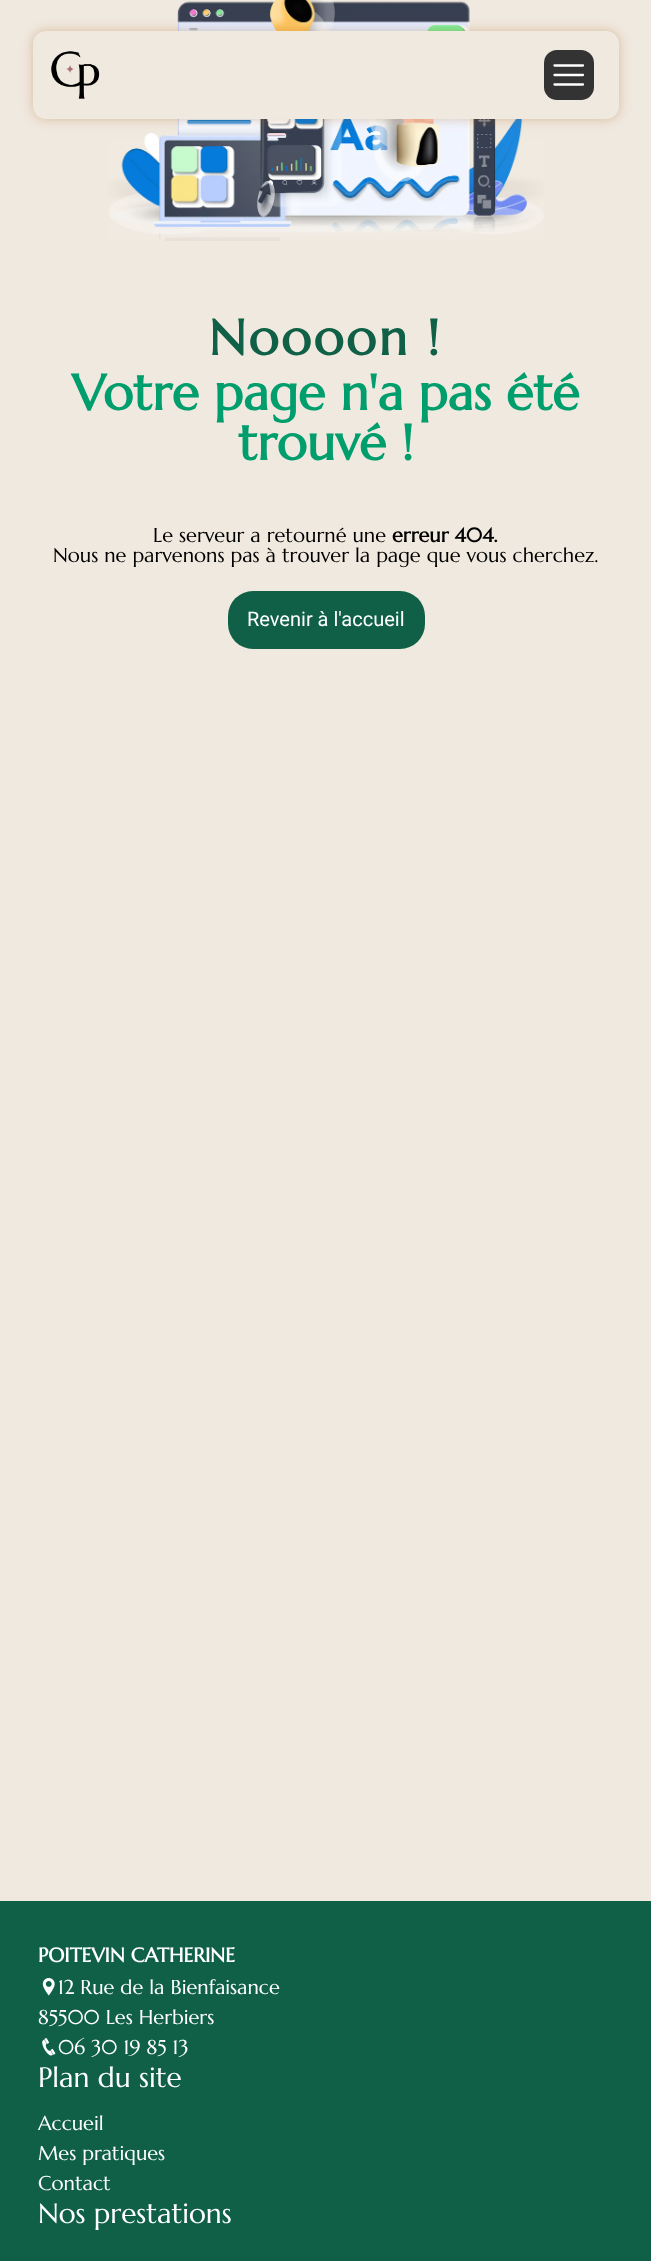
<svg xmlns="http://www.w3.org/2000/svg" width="651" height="2261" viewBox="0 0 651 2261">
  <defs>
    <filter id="blur1" x="-50%" y="-200%" width="200%" height="500%"><feGaussianBlur stdDeviation="6"/></filter>
  </defs>
  <rect width="100%" height="100%" fill="#f0e9df"/>
  <image x="108" y="0" width="436" height="241" href="img2.png"/>
  <rect x="33" y="31" width="586" height="88" rx="13" fill="#9a4f19" fill-opacity="0.31" filter="url(#blur1)"/>
  <rect x="33" y="31" width="586" height="88" rx="13" fill="#f0e9df"/>
  <image x="51" y="51" width="49" height="48" href="img1.png"/>
  <rect x="544" y="50" width="50" height="50" rx="13" fill="#333333"/>
  <path d="M554.5 65.5H583M554.5 75H583M554.5 84.5H583" fill="none" stroke="#ffffff" stroke-width="2.3" stroke-linecap="round"/>
  <text x="209" y="355" font-family="Marcellus" font-size="50" font-weight="bold" letter-spacing="2.5" fill="#0f6047">Noooon !</text>
  <text x="72" y="410" font-family="Marcellus" font-size="50" font-weight="bold" fill="#009d6d">Votre page n'a pas été</text>
  <text x="238" y="460" font-family="Marcellus" font-size="50" font-weight="bold" fill="#009d6d">trouvé !</text>
  <text x="153" y="542" font-family="Marcellus" font-size="20" fill="#000000">Le serveur a retourné une</text>
  <text x="392" y="542" font-family="Marcellus" font-size="20" font-weight="bold" fill="#000000">erreur 404.</text>
  <text x="53" y="562" font-family="Marcellus" font-size="20" fill="#000000">Nous ne parvenons pas à trouver la page que vous cherchez.</text>
  <rect x="228" y="591" width="197" height="58" rx="25" fill="#0f6047"/>
  <text x="247" y="626" font-family="Roboto" font-size="20" fill="#ffffff">Revenir à l'accueil</text>
  <rect x="0" y="1901" width="651" height="360" fill="#0f6047"/>
  <text x="38" y="1962" font-family="Marcellus" font-size="20" font-weight="bold" fill="#ffffff">POITEVIN CATHERINE</text>
  <image x="42" y="1978" width="13" height="18" href="img3.png"/>
  <text x="58" y="1994" font-family="Marcellus" font-size="20" fill="#ffffff">12 Rue de la Bienfaisance</text>
  <text x="38" y="2024" font-family="Marcellus" font-size="20" fill="#ffffff">85500 Les Herbiers</text>
  <image x="42" y="2038" width="14" height="18" href="img4.png"/>
  <text x="58" y="2054" font-family="Marcellus" font-size="20" fill="#ffffff">06 30 19 85 13</text>
  <text x="38" y="2087" font-family="Marcellus" font-size="28" fill="#ffffff">Plan du site</text>
  <text x="38" y="2130" font-family="Marcellus" font-size="20" fill="#ffffff">Accueil</text>
  <text x="38" y="2160" font-family="Marcellus" font-size="20" fill="#ffffff">Mes pratiques</text>
  <text x="38" y="2190" font-family="Marcellus" font-size="20" fill="#ffffff">Contact</text>
  <text x="38" y="2223" font-family="Marcellus" font-size="28" fill="#ffffff">Nos prestations</text>
</svg>
